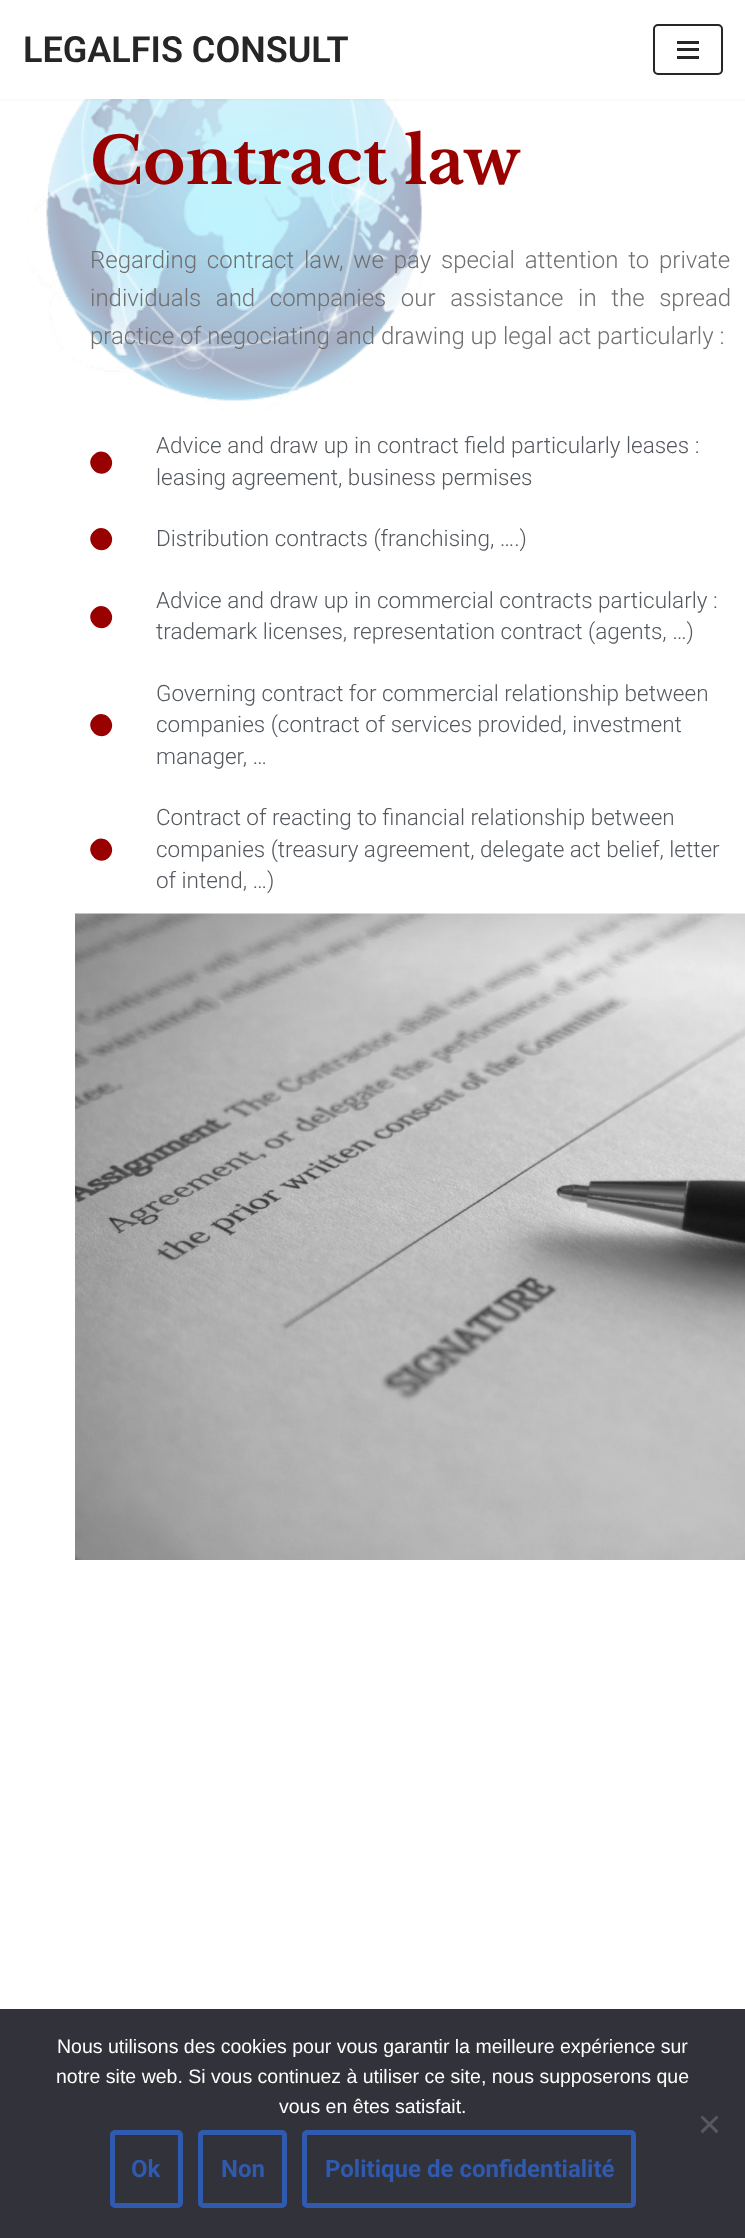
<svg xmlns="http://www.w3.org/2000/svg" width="745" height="2238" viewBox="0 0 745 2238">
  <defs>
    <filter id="blur1" x="-50%" y="-200%" width="200%" height="500%"><feGaussianBlur stdDeviation="2"/></filter>
  </defs>
  <rect width="100%" height="100%" fill="#ffffff"/>
  <image x="27" y="99" width="396" height="312" href="img1.png"/>
  <rect x="0" y="-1" width="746" height="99" fill="#000000" fill-opacity="0.1" filter="url(#blur1)"/>
  <rect x="0" y="0" width="745" height="99" fill="#ffffff"/>
  <text x="23" y="62" font-family="Roboto" font-size="36" font-weight="600" fill="#272626">LEGALFIS CONSULT</text>
  <rect x="654" y="25" width="68" height="49" rx="4" fill="none" stroke="#272626" stroke-width="2"/>
  <rect x="677" y="41" width="22" height="3" fill="#272626"/>
  <rect x="677" y="48" width="22" height="3" fill="#272626"/>
  <rect x="677" y="56" width="22" height="3" fill="#272626"/>
  <text x="90" y="184" font-family="Libre Baskerville" font-size="64.5" font-weight="bold" fill="#990000">Contract law</text>
  <text x="90" y="268" word-spacing="4" font-family="Roboto" font-size="24" font-weight="300" fill="#707070">Regarding contract law, we pay special attention to private</text>
  <text x="90" y="306" word-spacing="8.75" font-family="Roboto" font-size="24" font-weight="300" fill="#707070">individuals and companies our assistance in the spread</text>
  <text x="90" y="344" font-family="Roboto" font-size="24" font-weight="300" fill="#707070">practice of negociating and drawing up legal act particularly :</text>
  <path d="M93.5 455C103.5 444.5 119 460 109 470.5C99 480.5 83.5 465 93.5 455Z" fill="#990000"/>
  <text x="156" y="453" font-family="Roboto" font-size="22.5" font-weight="300" fill="#54595f">Advice and draw up in contract field particularly leases :</text>
  <text x="156" y="485" font-family="Roboto" font-size="22.5" font-weight="300" fill="#54595f">leasing agreement, business permises</text>
  <path d="M93.5 531.5C103.5 521 119 536.5 109 547C99 557 83.5 541.5 93.5 531.5Z" fill="#990000"/>
  <text x="156" y="546" font-family="Roboto" font-size="22.5" font-weight="300" fill="#54595f">Distribution contracts (franchising, ….)</text>
  <path d="M93.5 609.5C103.5 599 119 614.5 109 625C99 635 83.5 619.5 93.5 609.5Z" fill="#990000"/>
  <text x="156" y="608" font-family="Roboto" font-size="22.5" font-weight="300" fill="#54595f">Advice and draw up in commercial contracts particularly :</text>
  <text x="156" y="639" font-family="Roboto" font-size="22.5" font-weight="300" fill="#54595f">trademark licenses, representation contract (agents, …)</text>
  <path d="M93.5 717.5C103.5 707 119 722.5 109 733C99 743 83.5 727.5 93.5 717.5Z" fill="#990000"/>
  <text x="156" y="701" font-family="Roboto" font-size="22.5" font-weight="300" fill="#54595f">Governing contract for commercial relationship between</text>
  <text x="156" y="732" font-family="Roboto" font-size="22.5" font-weight="300" fill="#54595f">companies (contract of services provided, investment</text>
  <text x="156" y="764" font-family="Roboto" font-size="22.5" font-weight="300" fill="#54595f">manager, …</text>
  <path d="M93.5 842C103.5 831.5 119 847 109 857.5C99 867.5 83.5 852 93.5 842Z" fill="#990000"/>
  <text x="156" y="825" font-family="Roboto" font-size="22.5" font-weight="300" fill="#54595f">Contract of reacting to financial relationship between</text>
  <text x="156" y="857" font-family="Roboto" font-size="22.5" font-weight="300" fill="#54595f">companies (treasury agreement, delegate act belief, letter</text>
  <text x="156" y="888" font-family="Roboto" font-size="22.5" font-weight="300" fill="#54595f">of intend, …)</text>
  <image x="75" y="913" width="670" height="647" href="img2.png"/>
  <rect x="0" y="2009" width="745" height="229" fill="#32323a"/>
  <text x="57" y="2053" font-family="Liberation Sans" font-size="19.5" fill="#ffffff">Nous utilisons des cookies pour vous garantir la meilleure expérience sur</text>
  <text x="56" y="2083" font-family="Liberation Sans" font-size="19.5" fill="#ffffff">notre site web. Si vous continuez à utiliser ce site, nous supposerons que</text>
  <text x="279" y="2113" font-family="Liberation Sans" font-size="19.5" fill="#ffffff">vous en êtes satisfait.</text>
  <path d="M716.5 2115.5L718.5 2117.5L702.5 2133.5L700.5 2131Z" fill="#59595d"/>
  <path d="M700.5 2117.5L702.5 2115.5L718.5 2131L716.5 2133.5Z" fill="#59595d"/>
  <rect x="112.5" y="2132.5" width="68" height="73" rx="2.5" fill="none" stroke="#2f5aae" stroke-width="5"/>
  <text x="131" y="2177" font-family="Roboto" font-size="24" font-weight="bold" fill="#2f5aae">Ok</text>
  <rect x="200.5" y="2132.5" width="84" height="73" rx="2.5" fill="none" stroke="#2f5aae" stroke-width="5"/>
  <text x="221" y="2177" font-family="Roboto" font-size="24" font-weight="bold" fill="#2f5aae">Non</text>
  <rect x="304.5" y="2132.5" width="329" height="73" rx="2.5" fill="none" stroke="#2f5aae" stroke-width="5"/>
  <text x="325" y="2177" font-family="Roboto" font-size="24" font-weight="bold" fill="#2f5aae">Politique de confidentialité</text>
</svg>
